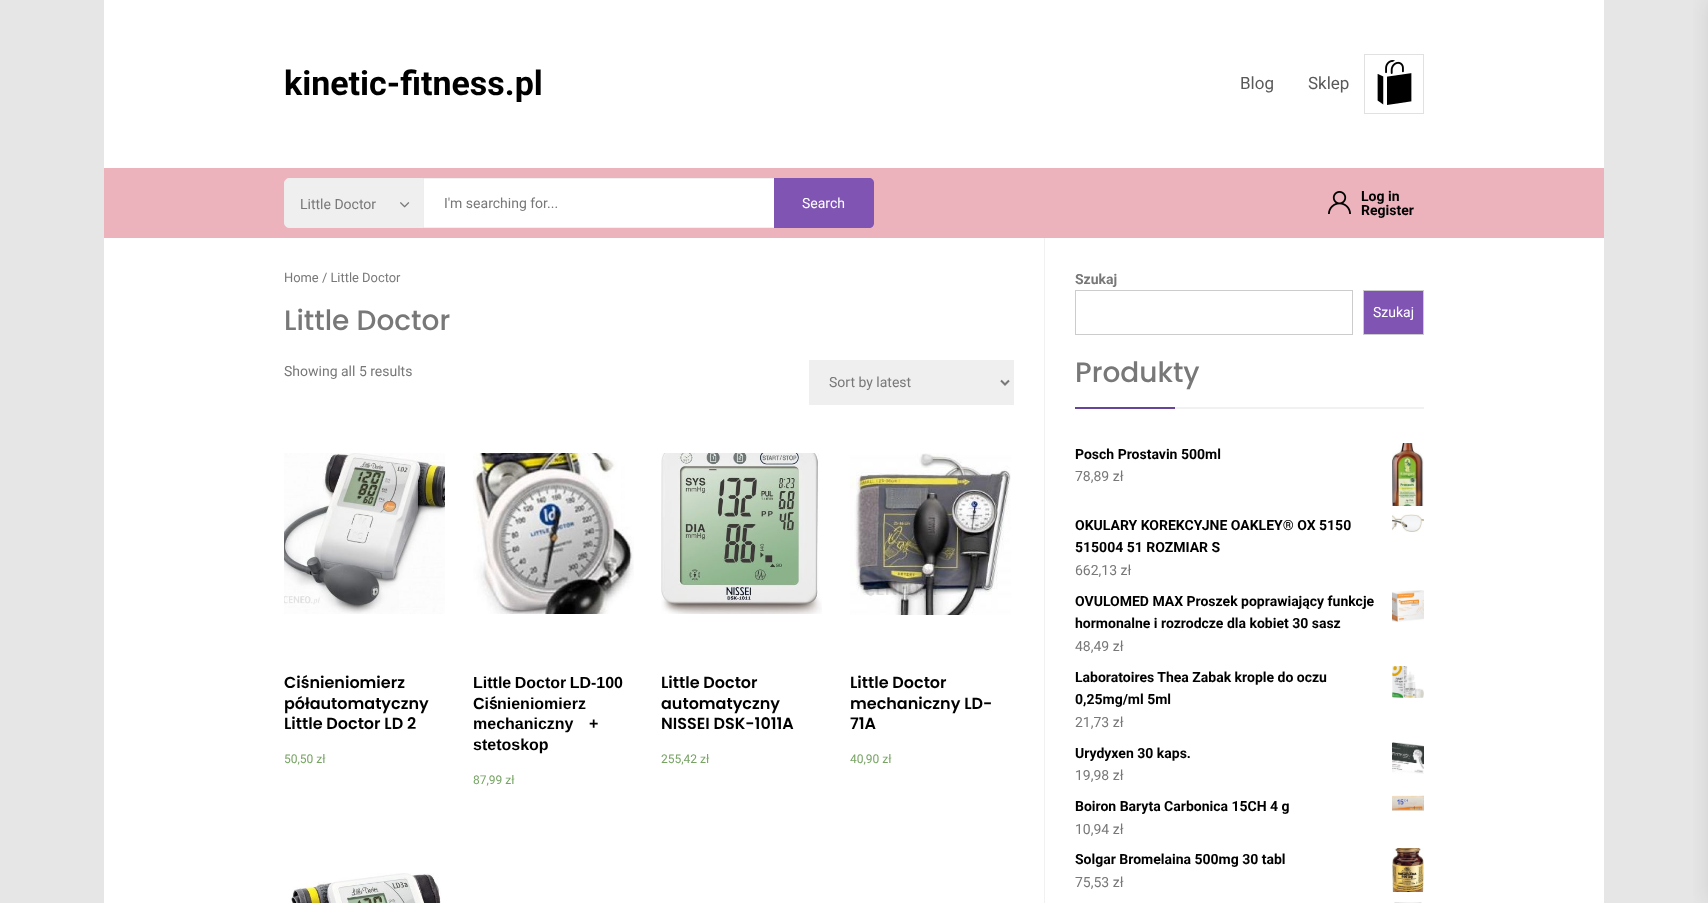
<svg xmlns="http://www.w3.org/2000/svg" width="1708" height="903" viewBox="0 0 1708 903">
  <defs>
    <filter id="blur1" x="-50%" y="-200%" width="200%" height="500%"><feGaussianBlur stdDeviation="10"/></filter>
  </defs>
  <rect width="100%" height="100%" fill="#e6e6e6"/>
  <rect x="104" y="0" width="1500" height="903" fill="#ffffff"/>
  <text x="284" y="95" font-family="Roboto" font-size="34" font-weight="bold" fill="#000000">kinetic-fitness.pl</text>
  <text x="1240" y="89" font-family="Roboto" font-size="17" fill="#595959">Blog</text>
  <text x="1308" y="89" font-family="Roboto" font-size="17" fill="#595959">Sklep</text>
  <rect x="1364.5" y="54.5" width="59" height="59" fill="none" stroke="#e1e1e1"/>
  <image x="1377" y="60" width="35" height="45" href="img1.png"/>
  <rect x="1708" y="0" width="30" height="903" fill="#000000" fill-opacity="0.1" filter="url(#blur1)"/>
  <rect x="104" y="168" width="1500" height="70" fill="#ecb3bd"/>
  <path d="M289 178.5H423.5V227.5H289C286.5 227.5 284.5 225.5 284.5 223V183C284.5 180.5 286.5 178.5 289 178.5Z" fill="#efefef" stroke="#eeeeee"/>
  <text x="300" y="209" font-family="Roboto" font-size="14" fill="#787878">Little Doctor</text>
  <image x="400" y="202" width="10" height="6" href="img2.png"/>
  <rect x="424" y="179" width="350" height="48" fill="#ffffff"/>
  <rect x="424" y="178" width="350" height="1" fill="#f1f1f1"/>
  <rect x="424" y="227" width="350" height="1" fill="#f1f1f1"/>
  <text x="444" y="208" font-family="Roboto" font-size="14" fill="#787878">I'm searching for...</text>
  <path d="M774 178H869C872 178 874 180 874 183V223C874 226 872 228 869 228H774Z" fill="#7f54b3"/>
  <text x="802" y="208" font-family="Roboto" font-size="14" fill="#ffffff">Search</text>
  <image x="1328" y="191" width="23" height="23" href="img3.png"/>
  <text x="1361" y="201" font-family="Roboto" font-size="14" font-weight="bold" fill="#000000">Log in</text>
  <text x="1361" y="215" font-family="Roboto" font-size="14" font-weight="bold" fill="#000000">Register</text>
  <text x="284" y="282" font-family="Roboto" font-size="12.9" fill="#787878">Home / Little Doctor</text>
  <text x="284" y="330" font-family="Poppins" font-size="28" font-weight="500" fill="#787878">Little Doctor</text>
  <text x="284" y="376" font-family="Roboto" font-size="14" fill="#787878">Showing all 5 results</text>
  <rect x="809" y="360" width="205" height="45" fill="#efefef"/>
  <path d="M1001 380.5L1005 384.5L1009 380.5" fill="none" stroke="#787878" stroke-width="2"/>
  <text x="829" y="387" font-family="Roboto" font-size="14" fill="#787878">Sort by latest</text>
  <image x="284" y="453" width="161" height="161" href="img4.png"/>
  <text x="284" y="688" font-family="Poppins" font-size="16" font-weight="600" fill="#000000">Ciśnieniomierz</text>
  <text x="284" y="709" font-family="Poppins" font-size="16" font-weight="600" fill="#000000">półautomatyczny</text>
  <text x="284" y="729" font-family="Poppins" font-size="16" font-weight="600" fill="#000000">Little Doctor LD 2</text>
  <text x="284" y="763" font-family="Roboto" font-size="12" fill="#77a464">50,50 zł</text>
  <image x="473" y="453" width="161" height="161" href="img5.png"/>
  <text x="473" y="688" word-spacing="-1" font-family="Liberation Sans" font-size="16" font-weight="bold" fill="#000000">Little Doctor LD‐100</text>
  <text x="473" y="709" font-family="Liberation Sans" font-size="16" font-weight="bold" fill="#000000">Ci</text>
  <text x="489" y="709" font-family="Poppins" font-size="16" font-weight="600" fill="#000000">ś</text>
  <text x="497" y="709" font-family="Liberation Sans" font-size="16" font-weight="bold" fill="#000000">nieniomierz</text>
  <text x="473" y="729" word-spacing="11" font-family="Liberation Sans" font-size="16" font-weight="bold" fill="#000000">mechaniczny +</text>
  <text x="473" y="750" font-family="Liberation Sans" font-size="16" font-weight="bold" fill="#000000">stetoskop</text>
  <text x="473" y="784" font-family="Roboto" font-size="12" fill="#77a464">87,99 zł</text>
  <image x="661" y="453" width="161" height="161" href="img6.png"/>
  <text x="661" y="688" font-family="Poppins" font-size="16" font-weight="600" fill="#000000">Little Doctor</text>
  <text x="661" y="709" font-family="Poppins" font-size="16" font-weight="600" fill="#000000">automatyczny</text>
  <text x="661" y="729" font-family="Poppins" font-size="16" font-weight="600" fill="#000000">NISSEI DSK-1011A</text>
  <text x="661" y="763" font-family="Roboto" font-size="12" fill="#77a464">255,42 zł</text>
  <image x="850" y="453" width="161" height="162" href="img7.png"/>
  <text x="850" y="688" font-family="Poppins" font-size="16" font-weight="600" fill="#000000">Little Doctor</text>
  <text x="850" y="709" font-family="Poppins" font-size="16" font-weight="600" fill="#000000">mechaniczny LD-</text>
  <text x="850" y="729" font-family="Poppins" font-size="16" font-weight="600" fill="#000000">71A</text>
  <text x="850" y="763" font-family="Roboto" font-size="12" fill="#77a464">40,90 zł</text>
  <image x="290" y="873" width="151" height="30" href="img8.png"/>
  <rect x="1044" y="238" width="1" height="665" fill="#f1f1f1"/>
  <text x="1075" y="284" font-family="Roboto" font-size="14" font-weight="bold" fill="#787878">Szukaj</text>
  <rect x="1075.5" y="290.5" width="277" height="44" fill="none" stroke="#cccccc"/>
  <rect x="1363.5" y="290.5" width="60" height="44" fill="#7f54b3" stroke="#cccccc"/>
  <text x="1373" y="317" font-family="Roboto" font-size="14" fill="#ffffff">Szukaj</text>
  <rect x="1175" y="407" width="249" height="2" fill="#f1f1f1"/>
  <text x="1075" y="382" font-family="Poppins" font-size="28" font-weight="500" fill="#787878">Produkty</text>
  <rect x="1075" y="407" width="100" height="2" fill="#674399"/>
  <text x="1075" y="459" font-family="Roboto" font-size="14" font-weight="bold" fill="#000000">Posch Prostavin 500ml</text>
  <image x="1392" y="443" width="32" height="63" href="img9.png"/>
  <text x="1075" y="481" font-family="Roboto" font-size="14" fill="#787878">78,89 zł</text>
  <text x="1075" y="530" font-family="Roboto" font-size="14" font-weight="bold" fill="#000000">OKULARY KOREKCYJNE OAKLEY® OX 5150</text>
  <image x="1392" y="514" width="32" height="18" href="img10.png"/>
  <text x="1075" y="552" font-family="Roboto" font-size="14" font-weight="bold" fill="#000000">515004 51 ROZMIAR S</text>
  <text x="1075" y="575" font-family="Roboto" font-size="14" fill="#787878">662,13 zł</text>
  <text x="1075" y="606" font-family="Roboto" font-size="14" font-weight="bold" fill="#000000">OVULOMED MAX Proszek poprawiający funkcje</text>
  <image x="1392" y="590" width="32" height="32" href="img11.png"/>
  <text x="1075" y="628" font-family="Roboto" font-size="14" font-weight="bold" fill="#000000">hormonalne i rozrodcze dla kobiet 30 sasz</text>
  <text x="1075" y="651" font-family="Roboto" font-size="14" fill="#787878">48,49 zł</text>
  <text x="1075" y="682" font-family="Roboto" font-size="14" font-weight="bold" fill="#000000">Laboratoires Thea Zabak krople do oczu</text>
  <image x="1392" y="666" width="32" height="32" href="img12.png"/>
  <text x="1075" y="704" font-family="Roboto" font-size="14" font-weight="bold" fill="#000000">0,25mg/ml 5ml</text>
  <text x="1075" y="727" font-family="Roboto" font-size="14" fill="#787878">21,73 zł</text>
  <text x="1075" y="758" font-family="Roboto" font-size="14" font-weight="bold" fill="#000000">Urydyxen 30 kaps.</text>
  <image x="1392" y="742" width="32" height="32" href="img13.png"/>
  <text x="1075" y="780" font-family="Roboto" font-size="14" fill="#787878">19,98 zł</text>
  <text x="1075" y="811" font-family="Roboto" font-size="14" font-weight="bold" fill="#000000">Boiron Baryta Carbonica 15CH 4 g</text>
  <image x="1392" y="795" width="32" height="16" href="img14.png"/>
  <text x="1075" y="834" font-family="Roboto" font-size="14" fill="#787878">10,94 zł</text>
  <text x="1075" y="864" font-family="Roboto" font-size="14" font-weight="bold" fill="#000000">Solgar Bromelaina 500mg 30 tabl</text>
  <image x="1392" y="848" width="32" height="44" href="img15.png"/>
  <text x="1075" y="887" font-family="Roboto" font-size="14" fill="#787878">75,53 zł</text>
  <image x="1394" y="902" width="28" height="1" href="img16.png"/>
</svg>
